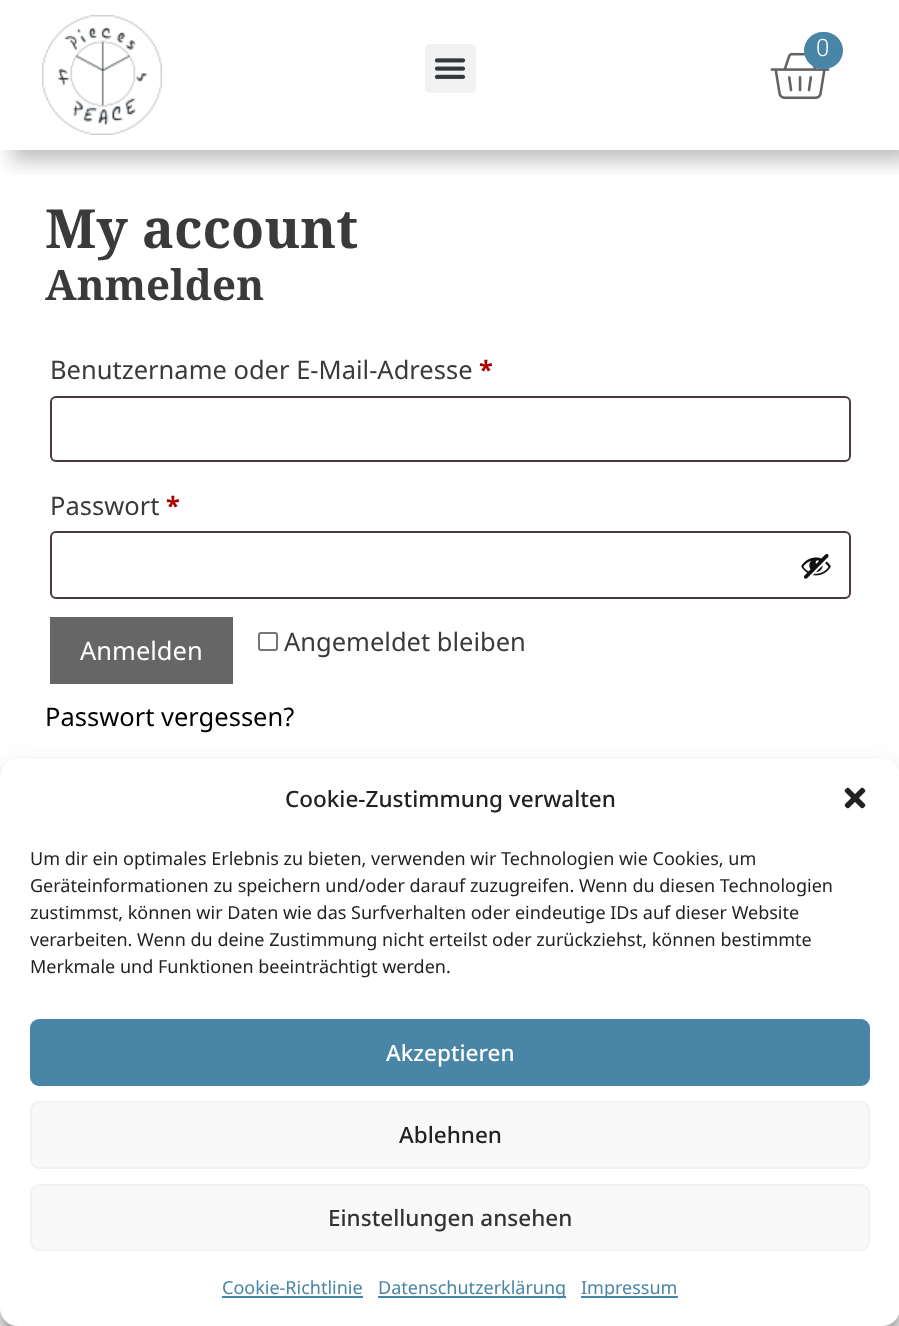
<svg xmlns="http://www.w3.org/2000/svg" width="899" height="1326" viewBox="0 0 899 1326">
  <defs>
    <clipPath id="clip1"><rect x="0" y="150" width="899" height="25"/></clipPath>
    <filter id="blur1" x="-50%" y="-200%" width="200%" height="500%"><feGaussianBlur stdDeviation="10"/></filter>
    <filter id="blur2" x="-50%" y="-200%" width="200%" height="500%"><feGaussianBlur stdDeviation="4.5"/></filter>
    <filter id="blur3" x="-50%" y="-200%" width="200%" height="500%"><feGaussianBlur stdDeviation="15"/></filter>
  </defs>
  <rect width="100%" height="100%" fill="#ffffff"/>
  <g clip-path="url(#clip1)">
    <rect x="11" y="11" width="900" height="150" fill="#000000" fill-opacity="0.25" filter="url(#blur1)"/>
  </g>
  <image x="42" y="15" width="120" height="120" href="img1.png"/>
  <rect x="425" y="44" width="51" height="49" rx="5" fill="#f2f2f2"/>
  <image x="434" y="58" width="32" height="21" href="img2.png"/>
  <image x="770" y="52" width="60" height="48" href="img3.png"/>
  <rect x="804" y="32" width="39" height="37" rx="18.5" fill="#4885a6"/>
  <text x="816" y="56" font-family="Roboto" font-size="24" font-weight="300" fill="#ffffff">0</text>
  <text x="45" y="248" font-family="Noto Serif" font-size="54" font-weight="bold" fill="#3a3a3a">My account</text>
  <text x="45" y="300" font-family="Noto Serif" font-size="42" font-weight="bold" fill="#3a3a3a">Anmelden</text>
  <text x="50" y="379" font-family="Noto Sans" font-size="25.5" fill="#3a3a3a">Benutzername oder E-Mail-Adresse</text>
  <text x="479" y="379" font-family="Noto Sans" font-size="25.5" font-weight="bold" fill="#aa0000">*</text>
  <rect x="51" y="397" width="799" height="64" rx="5" fill="none" stroke="#4d3939" stroke-width="2"/>
  <text x="50" y="515" font-family="Noto Sans" font-size="25.5" fill="#3a3a3a">Passwort</text>
  <text x="166" y="515" font-family="Noto Sans" font-size="25.5" font-weight="bold" fill="#aa0000">*</text>
  <rect x="51" y="532" width="799" height="66" rx="5" fill="none" stroke="#4d3939" stroke-width="2"/>
  <image x="801" y="554" width="30" height="25" href="img4.png"/>
  <rect x="50" y="617" width="183" height="67" fill="#666666"/>
  <text x="80" y="660" font-family="Noto Sans" font-size="25.5" fill="#ffffff">Anmelden</text>
  <rect x="259" y="633" width="18" height="17" rx="2" fill="none" stroke="#767676" stroke-width="2"/>
  <text x="284" y="651" font-family="Noto Sans" font-size="25.5" fill="#3a3a3a">Angemeldet bleiben</text>
  <text x="45" y="726" font-family="Noto Sans" font-size="25.5" fill="#000000">Passwort vergessen?</text>
  <rect x="0" y="1308" width="899" height="18" fill="#fafafa"/>
  <rect x="0" y="768" width="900" height="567" rx="18" fill="#000000" fill-opacity="0.23" filter="url(#blur2)"/>
  <rect x="0" y="774" width="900" height="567" rx="18" fill="#000000" fill-opacity="0.19" filter="url(#blur3)"/>
  <rect x="0" y="759" width="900" height="567" rx="18" fill="#ffffff"/>
  <text x="285" y="807" font-family="Noto Sans" font-size="22.5" font-weight="500" fill="#222222">Cookie-Zustimmung verwalten</text>
  <image x="844" y="787" width="22" height="22" href="img5.png"/>
  <text x="30" y="865" font-family="Noto Sans" font-size="18" fill="#222222">Um dir ein optimales Erlebnis zu bieten, verwenden wir Technologien wie Cookies, um</text>
  <text x="30" y="892" font-family="Noto Sans" font-size="18" fill="#222222">Geräteinformationen zu speichern und/oder darauf zuzugreifen. Wenn du diesen Technologien</text>
  <text x="30" y="919" font-family="Noto Sans" font-size="18" fill="#222222">zustimmst, können wir Daten wie das Surfverhalten oder eindeutige IDs auf dieser Website</text>
  <text x="30" y="946" font-family="Noto Sans" font-size="18" fill="#222222">verarbeiten. Wenn du deine Zustimmung nicht erteilst oder zurückziehst, können bestimmte</text>
  <text x="30" y="973" font-family="Noto Sans" font-size="18" fill="#222222">Merkmale und Funktionen beeinträchtigt werden.</text>
  <rect x="31" y="1020" width="838" height="65" rx="8" fill="#4885a6" stroke="#4885a6" stroke-width="2"/>
  <text x="386" y="1061" font-family="Noto Sans" font-size="22.5" font-weight="500" fill="#ffffff">Akzeptieren</text>
  <rect x="31" y="1102" width="838" height="66" rx="8" fill="#f9f9f9" stroke="#f2f2f2" stroke-width="2"/>
  <text x="399" y="1143" font-family="Noto Sans" font-size="22.5" font-weight="500" fill="#222222">Ablehnen</text>
  <rect x="31" y="1185" width="838" height="65" rx="8" fill="#f9f9f9" stroke="#f2f2f2" stroke-width="2"/>
  <text x="328" y="1226" font-family="Noto Sans" font-size="22.5" font-weight="500" fill="#333333">Einstellungen ansehen</text>
  <text x="222" y="1294" font-family="Noto Sans" font-size="18" fill="#4885a6">Cookie-Richtlinie</text>
  <rect x="222" y="1296" width="141" height="2" fill="#4885a6"/>
  <rect x="378" y="1296" width="188" height="2" fill="#4885a6"/>
  <text x="378" y="1294" font-family="Noto Sans" font-size="18" fill="#4885a6">Datenschutzerklärung</text>
  <rect x="581" y="1296" width="97" height="2" fill="#4885a6"/>
  <text x="581" y="1294" font-family="Noto Sans" font-size="18" fill="#4885a6">Impressum</text>
</svg>
